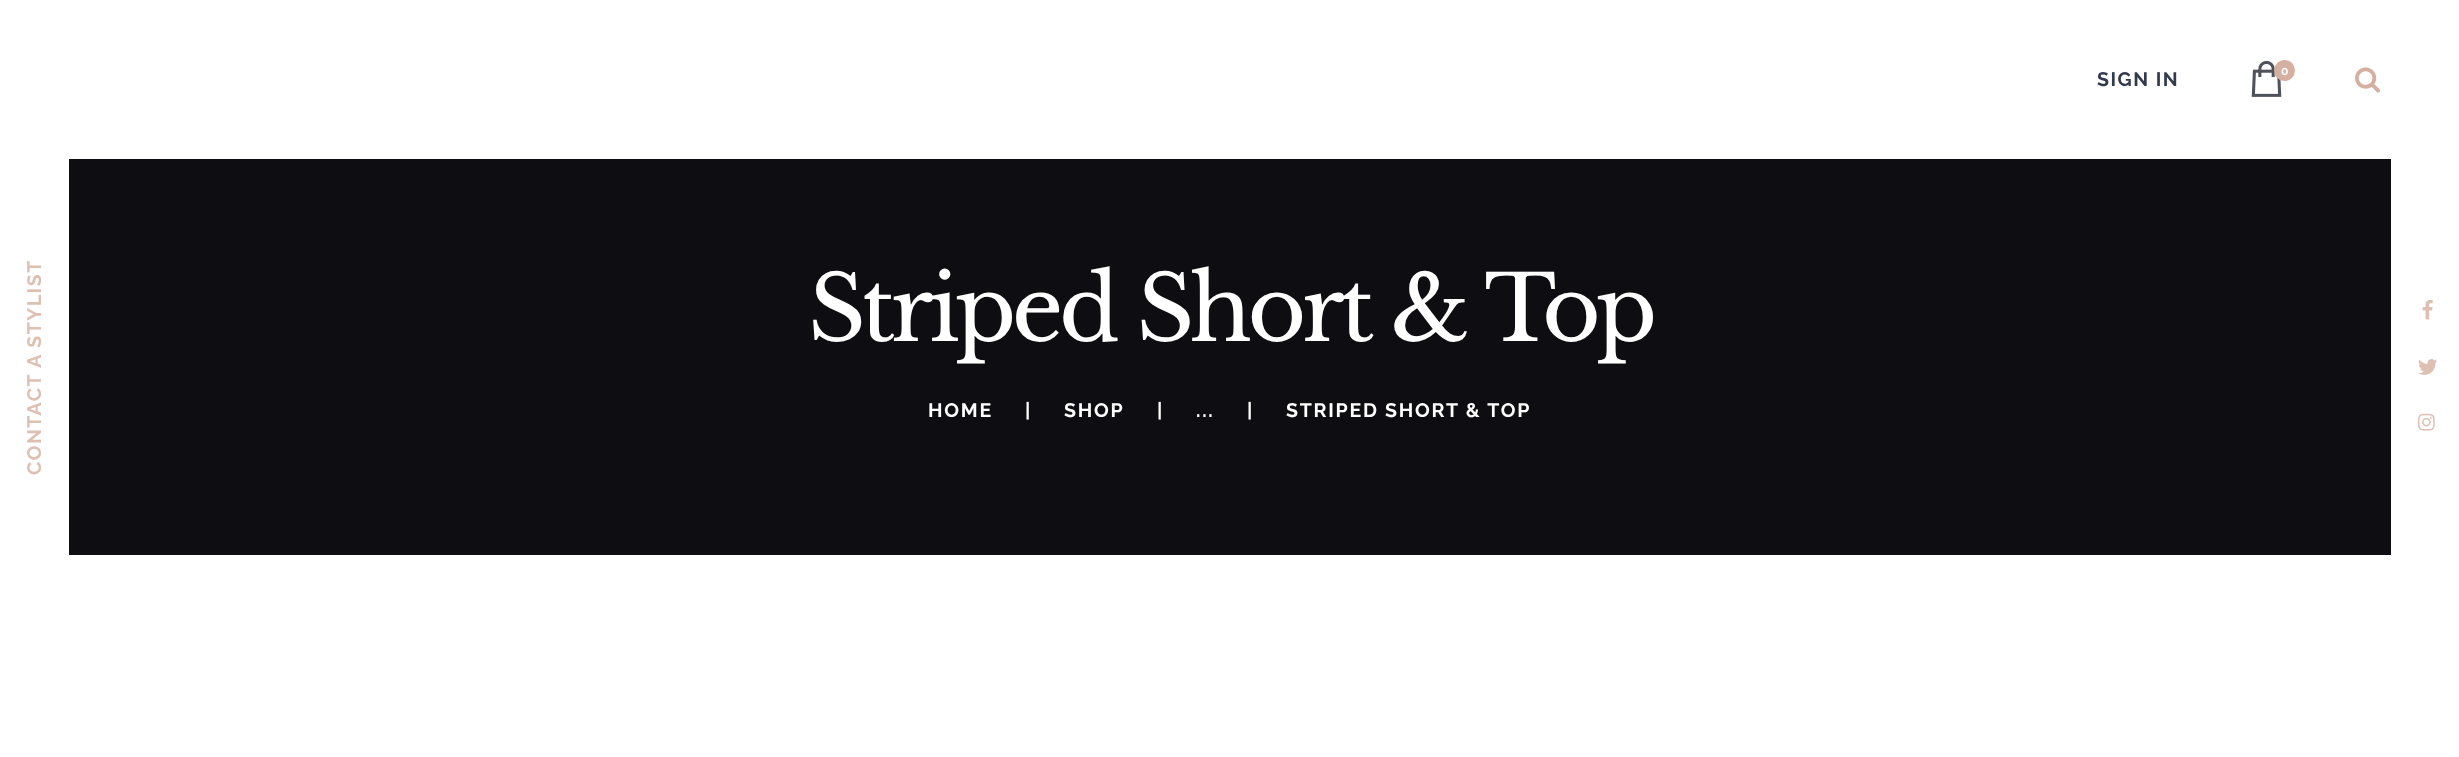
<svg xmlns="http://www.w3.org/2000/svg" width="2459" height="757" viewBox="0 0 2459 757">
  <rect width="100%" height="100%" fill="#ffffff"/>
  <text x="41" y="475" transform="rotate(-90 41 475)" font-family="Raleway" font-size="19.5" font-weight="bold" letter-spacing="1.5" fill="#dec0b2">CONTACT A STYLIST</text>
  <text x="2097" y="86" font-family="Raleway" font-size="19.5" font-weight="bold" letter-spacing="1.5" fill="#323a4d">SIGN IN</text>
  <image x="2251" y="60" width="31" height="37" href="img1.png"/>
  <circle cx="2284.5" cy="70.5" r="10.5" fill="#d5b0a0"/>
  <text x="2281" y="75" font-family="Raleway" font-size="12" font-weight="bold" fill="#ffffff">0</text>
  <image x="2355" y="67" width="25" height="26" href="img2.png"/>
  <rect x="69" y="159" width="2322" height="396" fill="#0e0d12"/>
  <text x="808" y="341" font-family="Libre Baskerville" font-size="90" letter-spacing="-4.5" fill="#ffffff">Striped Short &amp; Top</text>
  <text x="928" y="417" font-family="Raleway" font-size="19.5" font-weight="bold" letter-spacing="1.75" fill="#ffffff">HOME</text>
  <text x="1025" y="417" font-family="Raleway" font-size="19.5" font-weight="bold" letter-spacing="1.75" fill="#ffffff">|</text>
  <text x="1064" y="417" font-family="Raleway" font-size="19.5" font-weight="bold" letter-spacing="1.75" fill="#ffffff">SHOP</text>
  <text x="1157" y="417" font-family="Raleway" font-size="19.5" font-weight="bold" letter-spacing="1.75" fill="#ffffff">|</text>
  <text x="1196" y="417" font-family="Raleway" font-size="19.5" font-weight="bold" letter-spacing="1.75" fill="#ffffff">...</text>
  <text x="1247" y="417" font-family="Raleway" font-size="19.5" font-weight="bold" letter-spacing="1.75" fill="#ffffff">|</text>
  <text x="1286" y="417" font-family="Raleway" font-size="19.5" font-weight="bold" letter-spacing="1.75" fill="#ffffff">STRIPED SHORT &amp; TOP</text>
  <image x="2422" y="299" width="11" height="21" href="img3.png"/>
  <image x="2418" y="359" width="20" height="16" href="img4.png"/>
  <image x="2418" y="413" width="17" height="18" href="img5.png"/>
</svg>
